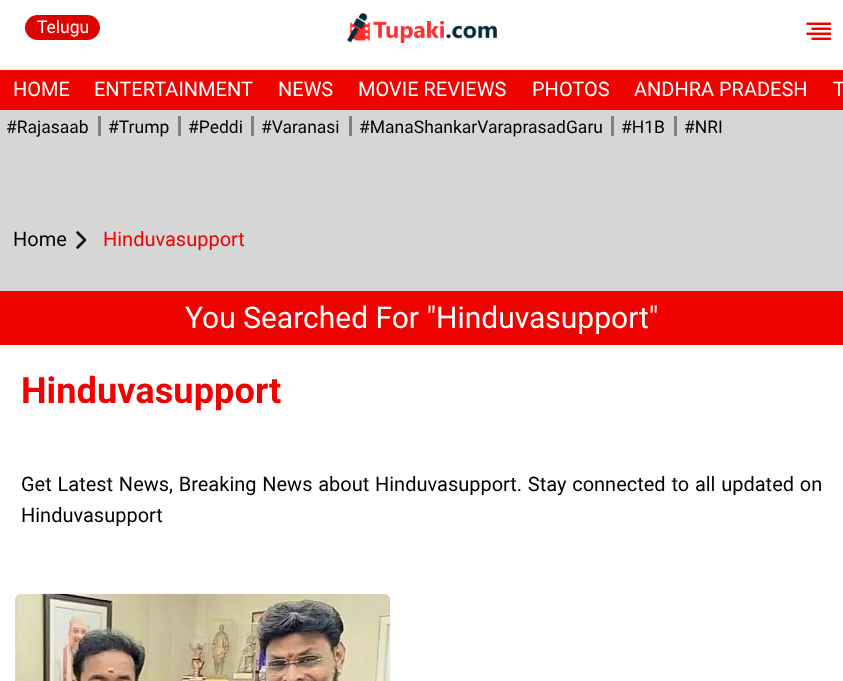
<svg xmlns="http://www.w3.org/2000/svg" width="843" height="681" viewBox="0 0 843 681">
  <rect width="100%" height="100%" fill="#d6d6d6"/>
  <rect x="0" y="71" width="843" height="39" fill="#f00201"/>
  <rect x="0" y="0" width="843" height="69" fill="#ffffff"/>
  <rect x="25" y="15" width="75" height="25" rx="12.5" fill="#dc0403"/>
  <text x="37" y="33" font-family="Roboto" font-size="17.5" fill="#ffffff">Telugu</text>
  <image x="806" y="22" width="26" height="18" href="img1.png"/>
  <image x="347" y="13" width="150" height="30" href="img2.png"/>
  <rect x="0" y="70" width="843" height="1" fill="#f21b1a"/>
  <rect x="0" y="69" width="843" height="1" fill="#e7e7e7"/>
  <text x="13" y="96" font-family="Roboto" font-size="20" fill="#ffffff">HOME</text>
  <text x="94" y="96" font-family="Roboto" font-size="20" fill="#ffffff">ENTERTAINMENT</text>
  <text x="278" y="96" font-family="Roboto" font-size="20" fill="#ffffff">NEWS</text>
  <text x="358" y="96" font-family="Roboto" font-size="20" fill="#ffffff">MOVIE REVIEWS</text>
  <text x="532" y="96" font-family="Roboto" font-size="20" fill="#ffffff">PHOTOS</text>
  <text x="634" y="96" font-family="Roboto" font-size="20" fill="#ffffff">ANDHRA PRADESH</text>
  <text x="833" y="96" font-family="Roboto" font-size="20" fill="#ffffff">T</text>
  <text x="6" y="133" font-family="Roboto" font-size="17.5" fill="#000000">#Rajasaab</text>
  <rect x="98" y="116" width="3" height="20" fill="#808080"/>
  <text x="108" y="133" font-family="Roboto" font-size="17.5" fill="#000000">#Trump</text>
  <rect x="178" y="116" width="3" height="20" fill="#808080"/>
  <text x="188" y="133" font-family="Roboto" font-size="17.5" fill="#000000">#Peddi</text>
  <rect x="251" y="116" width="3" height="20" fill="#808080"/>
  <text x="261" y="133" font-family="Roboto" font-size="17.5" fill="#000000">#Varanasi</text>
  <rect x="349" y="116" width="3" height="20" fill="#808080"/>
  <text x="359" y="133" font-family="Roboto" font-size="17.5" fill="#000000">#ManaShankarVaraprasadGaru</text>
  <rect x="611" y="116" width="3" height="20" fill="#808080"/>
  <text x="621" y="133" font-family="Roboto" font-size="17.5" fill="#000000">#H1B</text>
  <rect x="674" y="116" width="3" height="20" fill="#808080"/>
  <text x="684" y="133" font-family="Roboto" font-size="17.5" fill="#000000">#NRI</text>
  <text x="13" y="246" font-family="Roboto" font-size="20" fill="#000000">Home</text>
  <path d="M77.5 247.5L85 240L77.5 232.5" fill="none" stroke="#000000" stroke-width="2.5" stroke-linecap="round" stroke-linejoin="round"/>
  <text x="103" y="246" font-family="Roboto" font-size="20" fill="#f00201">Hinduvasupport</text>
  <rect x="0" y="291" width="843" height="54" fill="#f00201"/>
  <text x="185" y="328" font-family="Roboto" font-size="30" fill="#ffffff">You Searched For "Hinduvasupport"</text>
  <rect x="0" y="345" width="843" height="336" fill="#ffffff"/>
  <text x="21" y="403" font-family="Roboto" font-size="36.25" font-weight="bold" fill="#f00201">Hinduvasupport</text>
  <text x="21" y="491" word-spacing="0.8" font-family="Roboto" font-size="20" fill="#000000">Get Latest News, Breaking News about Hinduvasupport. Stay connected to all updated on</text>
  <text x="21" y="522" font-family="Roboto" font-size="20" fill="#000000">Hinduvasupport</text>
  <image x="15" y="593" width="375" height="88" href="img3.png"/>
</svg>
